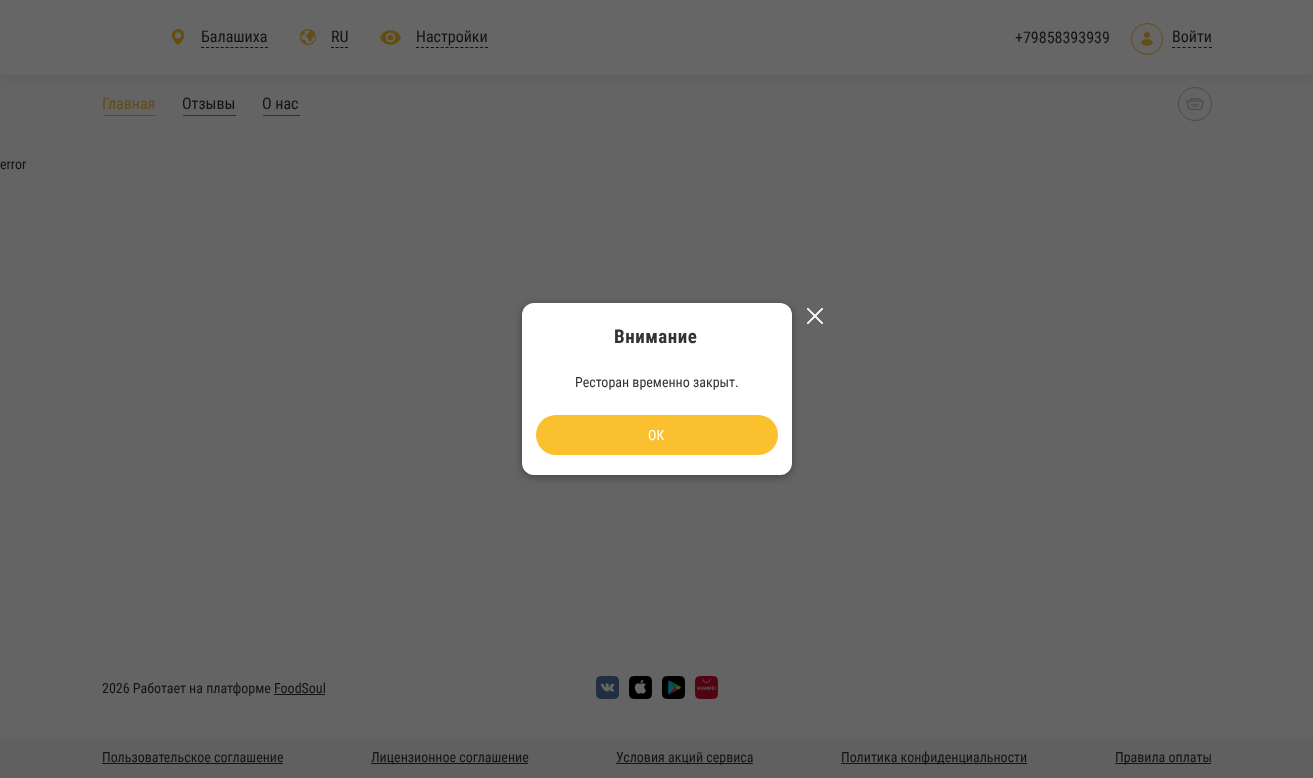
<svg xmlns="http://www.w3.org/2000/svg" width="1313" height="778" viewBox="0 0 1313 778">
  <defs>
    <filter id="blur1" x="-50%" y="-200%" width="200%" height="500%"><feGaussianBlur stdDeviation="7.5"/></filter>
    <filter id="blur2" x="-50%" y="-200%" width="200%" height="500%"><feGaussianBlur stdDeviation="4"/></filter>
  </defs>
  <rect width="100%" height="100%" fill="#646464"/>
  <rect x="0" y="0" width="1313" height="75" fill="#000000" fill-opacity="0.1" filter="url(#blur1)"/>
  <rect x="0" y="0" width="1313" height="75" fill="#666666"/>
  <image x="171" y="29" width="14" height="16" href="img1.png"/>
  <path d="M201 47.5H268" fill="none" stroke="#141414" stroke-dasharray="3 1.92"/>
  <text x="201" y="42" font-family="Roboto Condensed" font-size="16" fill="#141414">Балашиха</text>
  <image x="300" y="29" width="16" height="16" href="img2.png"/>
  <path d="M331 47.5H348" fill="none" stroke="#141414" stroke-dasharray="3 1.67"/>
  <text x="331" y="42" font-family="Roboto Condensed" font-size="16" fill="#141414">RU</text>
  <image x="380" y="30" width="21" height="15" href="img3.png"/>
  <path d="M416 47.5H488" fill="none" stroke="#141414" stroke-dasharray="3 1.93"/>
  <text x="416" y="42" font-family="Roboto Condensed" font-size="16" fill="#141414">Настройки</text>
  <text x="1015" y="43" font-family="Roboto Condensed" font-size="16" fill="#141414">+79858393939</text>
  <circle cx="1147" cy="39" r="15.5" fill="none" stroke="#644d12"/>
  <image x="1141" y="32" width="12" height="14" href="img4.png"/>
  <path d="M1172 47.5H1212" fill="none" stroke="#141414" stroke-dasharray="3 2.29"/>
  <text x="1172" y="42" font-family="Roboto Condensed" font-size="16" fill="#141414">Войти</text>
  <text x="102" y="109" font-family="Roboto Condensed" font-size="16" fill="#644d12">Главная</text>
  <rect x="103" y="115" width="53" height="1" fill="#644d12"/>
  <text x="182" y="109" font-family="Roboto Condensed" font-size="16" fill="#141414">Отзывы</text>
  <rect x="183" y="115" width="53" height="1" fill="#313131"/>
  <text x="262" y="109" font-family="Roboto Condensed" font-size="16" fill="#141414">О нас</text>
  <rect x="263" y="115" width="37" height="1" fill="#313131"/>
  <text x="0" y="169" font-family="Roboto Condensed" font-size="14" fill="#141414">error</text>
  <circle cx="1195" cy="104" r="16.5" fill="none" stroke="#474b4c"/>
  <image x="1186" y="98" width="18" height="12" href="img5.png"/>
  <image x="807" y="308" width="16" height="16" href="img6.png"/>
  <rect x="522" y="305" width="270" height="172" rx="12" fill="#000000" fill-opacity="0.33" filter="url(#blur2)"/>
  <rect x="522" y="303" width="270" height="172" rx="12" fill="#ffffff"/>
  <text x="614" y="343" font-family="Roboto Condensed" font-size="19" font-weight="bold" letter-spacing="0.5" fill="#333333">Внимание</text>
  <text x="575" y="387" font-family="Roboto Condensed" font-size="14" fill="#333333">Ресторан временно закрыт.</text>
  <rect x="536" y="415" width="242" height="40" rx="20" fill="#fbc02d"/>
  <text x="648" y="440" font-family="Roboto Condensed" font-size="14" fill="#ffffff">ОК</text>
  <text x="102" y="693" font-family="Roboto Condensed" font-size="14" fill="#141414">2026 Работает на платформе FoodSoul</text>
  <rect x="274" y="694" width="51" height="1" fill="#141414"/>
  <image x="596" y="676" width="23" height="23" href="img7.png"/>
  <image x="629" y="676" width="23" height="23" href="img8.png"/>
  <image x="662" y="676" width="23" height="23" href="img9.png"/>
  <image x="695" y="676" width="23" height="23" href="img10.png"/>
  <rect x="0" y="737" width="1313" height="41" fill="#606060"/>
  <text x="102" y="762" font-family="Roboto Condensed" font-size="14" fill="#141414">Пользовательское соглашение</text>
  <rect x="102" y="763" width="181" height="1" fill="#141414"/>
  <rect x="371" y="763" width="157" height="1" fill="#141414"/>
  <text x="371" y="762" font-family="Roboto Condensed" font-size="14" fill="#141414">Лицензионное соглашение</text>
  <rect x="616" y="763" width="137" height="1" fill="#141414"/>
  <text x="616" y="762" font-family="Roboto Condensed" font-size="14" fill="#141414">Условия акций сервиса</text>
  <rect x="841" y="763" width="186" height="1" fill="#141414"/>
  <text x="841" y="762" font-family="Roboto Condensed" font-size="14" fill="#141414">Политика конфиденциальности</text>
  <rect x="1115" y="763" width="96" height="1" fill="#141414"/>
  <text x="1115" y="762" font-family="Roboto Condensed" font-size="14" fill="#141414">Правила оплаты</text>
</svg>
